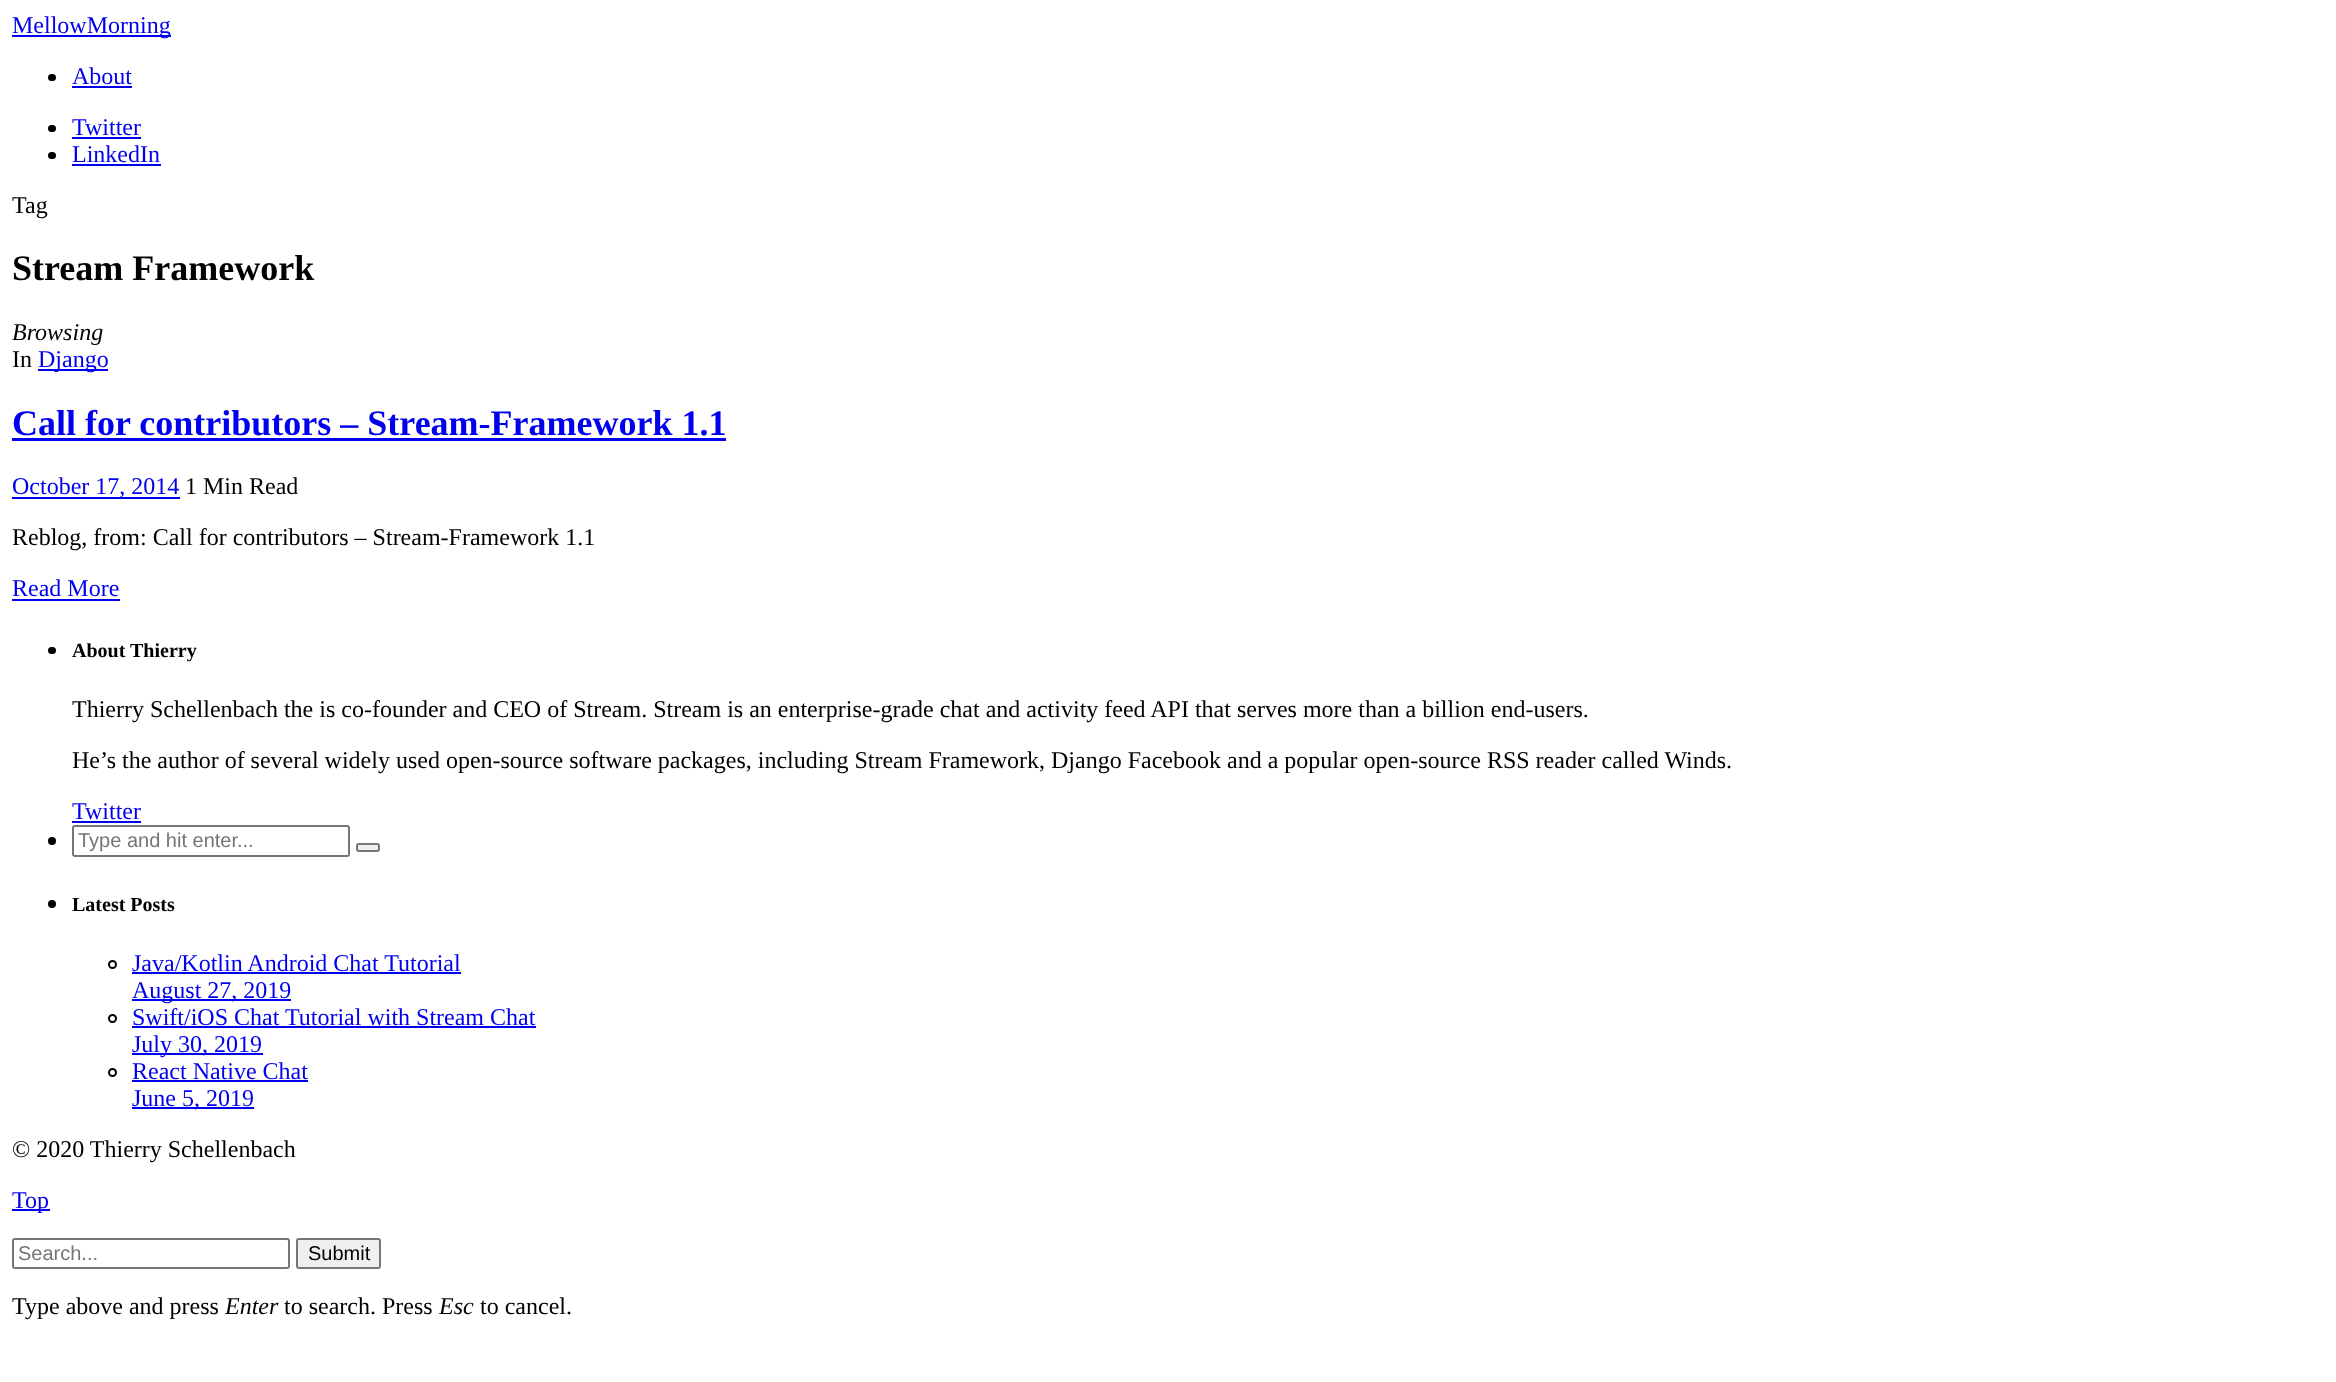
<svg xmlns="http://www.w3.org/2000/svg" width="2336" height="1382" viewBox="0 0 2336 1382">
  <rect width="100%" height="100%" fill="#ffffff"/>
  <rect x="12" y="35" width="159" height="2" fill="#0000ee"/>
  <text x="12" y="33" font-family="Liberation Serif" font-size="24" fill="#0000ee">MellowMorning</text>
  <rect x="48" y="74" width="8" height="7" rx="3.5" fill="#000000"/>
  <text x="72" y="84" font-family="Liberation Serif" font-size="24" fill="#0000ee">About</text>
  <rect x="72" y="86" width="60" height="2" fill="#0000ee"/>
  <rect x="48" y="125" width="8" height="7" rx="3.5" fill="#000000"/>
  <text x="72" y="135" font-family="Liberation Serif" font-size="24" fill="#0000ee">Twitter</text>
  <rect x="72" y="137" width="69" height="2" fill="#0000ee"/>
  <rect x="48" y="152" width="8" height="7" rx="3.5" fill="#000000"/>
  <text x="72" y="162" font-family="Liberation Serif" font-size="24" fill="#0000ee">LinkedIn</text>
  <rect x="72" y="164" width="89" height="2" fill="#0000ee"/>
  <text x="12" y="213" font-family="Liberation Serif" font-size="24" fill="#000000">Tag</text>
  <text x="12" y="280" font-family="Liberation Serif" font-size="36" font-weight="bold" fill="#000000">Stream Framework</text>
  <text x="12" y="340" font-family="Liberation Serif" font-size="24" font-style="italic" fill="#000000">Browsing</text>
  <text x="12" y="367" font-family="Liberation Serif" font-size="24" fill="#000000">In</text>
  <rect x="38" y="369" width="70" height="2" fill="#0000ee"/>
  <text x="38" y="367" font-family="Liberation Serif" font-size="24" fill="#0000ee">Django</text>
  <text x="12" y="435" font-family="Liberation Serif" font-size="36" font-weight="bold" fill="#0000ee">Call for contributors – Stream-Framework 1.1</text>
  <rect x="12" y="438" width="714" height="3" fill="#0000ee"/>
  <rect x="12" y="497" width="168" height="2" fill="#0000ee"/>
  <text x="12" y="494" font-family="Liberation Serif" font-size="24" fill="#0000ee">October 17, 2014</text>
  <text x="185" y="494" font-family="Liberation Serif" font-size="24" fill="#000000">1 Min Read</text>
  <text x="12" y="545" font-family="Liberation Serif" font-size="24" fill="#000000">Reblog, from: Call for contributors – Stream-Framework 1.1</text>
  <text x="12" y="596" font-family="Liberation Serif" font-size="24" fill="#0000ee">Read More</text>
  <rect x="12" y="599" width="108" height="2" fill="#0000ee"/>
  <rect x="48" y="647" width="8" height="7" rx="3.5" fill="#000000"/>
  <text x="72" y="657" font-family="Liberation Serif" font-size="20" font-weight="bold" fill="#000000">About Thierry</text>
  <text x="72" y="717" font-family="Liberation Serif" font-size="24" fill="#000000">Thierry Schellenbach the is co-founder and CEO of Stream. Stream is an enterprise-grade chat and activity feed API that serves more than a billion end-users.</text>
  <text x="72" y="768" font-family="Liberation Serif" font-size="24" fill="#000000">He’s the author of several widely used open-source software packages, including Stream Framework, Django Facebook and a popular open-source RSS reader called Winds.</text>
  <text x="72" y="819" font-family="Liberation Serif" font-size="24" fill="#0000ee">Twitter</text>
  <rect x="72" y="821" width="69" height="2" fill="#0000ee"/>
  <circle cx="52" cy="841" r="4" fill="#000000"/>
  <rect x="73" y="826" width="276" height="30" rx="2" fill="none" stroke="#767676" stroke-width="2"/>
  <text x="78" y="847" font-family="Liberation Sans" font-size="20" fill="#757575">Type and hit enter...</text>
  <rect x="357" y="844" width="22" height="7" rx="2" fill="#efefef" stroke="#767676" stroke-width="2"/>
  <circle cx="52" cy="904" r="4" fill="#000000"/>
  <text x="72" y="911" font-family="Liberation Serif" font-size="20" font-weight="bold" fill="#000000">Latest Posts</text>
  <circle cx="112.5" cy="964.5" r="3.5" fill="none" stroke="#000000" stroke-width="2"/>
  <text x="132" y="971" font-family="Liberation Serif" font-size="24" fill="#0000ee">Java/Kotlin Android Chat Tutorial</text>
  <rect x="132" y="972" width="329" height="2" fill="#0000ee"/>
  <rect x="132" y="999" width="159" height="2" fill="#0000ee"/>
  <text x="132" y="998" font-family="Liberation Serif" font-size="24" fill="#0000ee">August 27, 2019</text>
  <circle cx="112.5" cy="1018.5" r="3.5" fill="none" stroke="#000000" stroke-width="2"/>
  <text x="132" y="1025" font-family="Liberation Serif" font-size="24" fill="#0000ee">Swift/iOS Chat Tutorial with Stream Chat</text>
  <rect x="132" y="1026" width="404" height="2" fill="#0000ee"/>
  <rect x="132" y="1053" width="131" height="2" fill="#0000ee"/>
  <text x="132" y="1052" font-family="Liberation Serif" font-size="24" fill="#0000ee">July 30, 2019</text>
  <circle cx="112.5" cy="1072.5" r="3.5" fill="none" stroke="#000000" stroke-width="2"/>
  <text x="132" y="1079" font-family="Liberation Serif" font-size="24" fill="#0000ee">React Native Chat</text>
  <rect x="132" y="1080" width="176" height="2" fill="#0000ee"/>
  <rect x="132" y="1107" width="122" height="2" fill="#0000ee"/>
  <text x="132" y="1106" font-family="Liberation Serif" font-size="24" fill="#0000ee">June 5, 2019</text>
  <text x="12" y="1157" font-family="Liberation Serif" font-size="24" fill="#000000">© 2020 Thierry Schellenbach</text>
  <rect x="12" y="1209" width="38" height="2" fill="#0000ee"/>
  <text x="12" y="1208" font-family="Liberation Serif" font-size="24" fill="#0000ee">Top</text>
  <rect x="13" y="1239" width="276" height="29" rx="2" fill="none" stroke="#767676" stroke-width="2"/>
  <text x="18" y="1260" font-family="Liberation Sans" font-size="20" fill="#757575">Search...</text>
  <rect x="297" y="1239" width="83" height="29" rx="2" fill="#efefef" stroke="#767676" stroke-width="2"/>
  <text x="308" y="1260" font-family="Liberation Sans" font-size="20" fill="#000000">Submit</text>
  <text x="12" y="1314" font-family="Liberation Serif" font-size="24" fill="#000000">Type above and press</text>
  <text x="225" y="1314" font-family="Liberation Serif" font-size="24" font-style="italic" fill="#000000">Enter</text>
  <text x="284" y="1314" font-family="Liberation Serif" font-size="24" fill="#000000">to search. Press</text>
  <text x="439" y="1314" font-family="Liberation Serif" font-size="24" font-style="italic" fill="#000000">Esc</text>
  <text x="480" y="1314" font-family="Liberation Serif" font-size="24" fill="#000000">to cancel.</text>
</svg>
